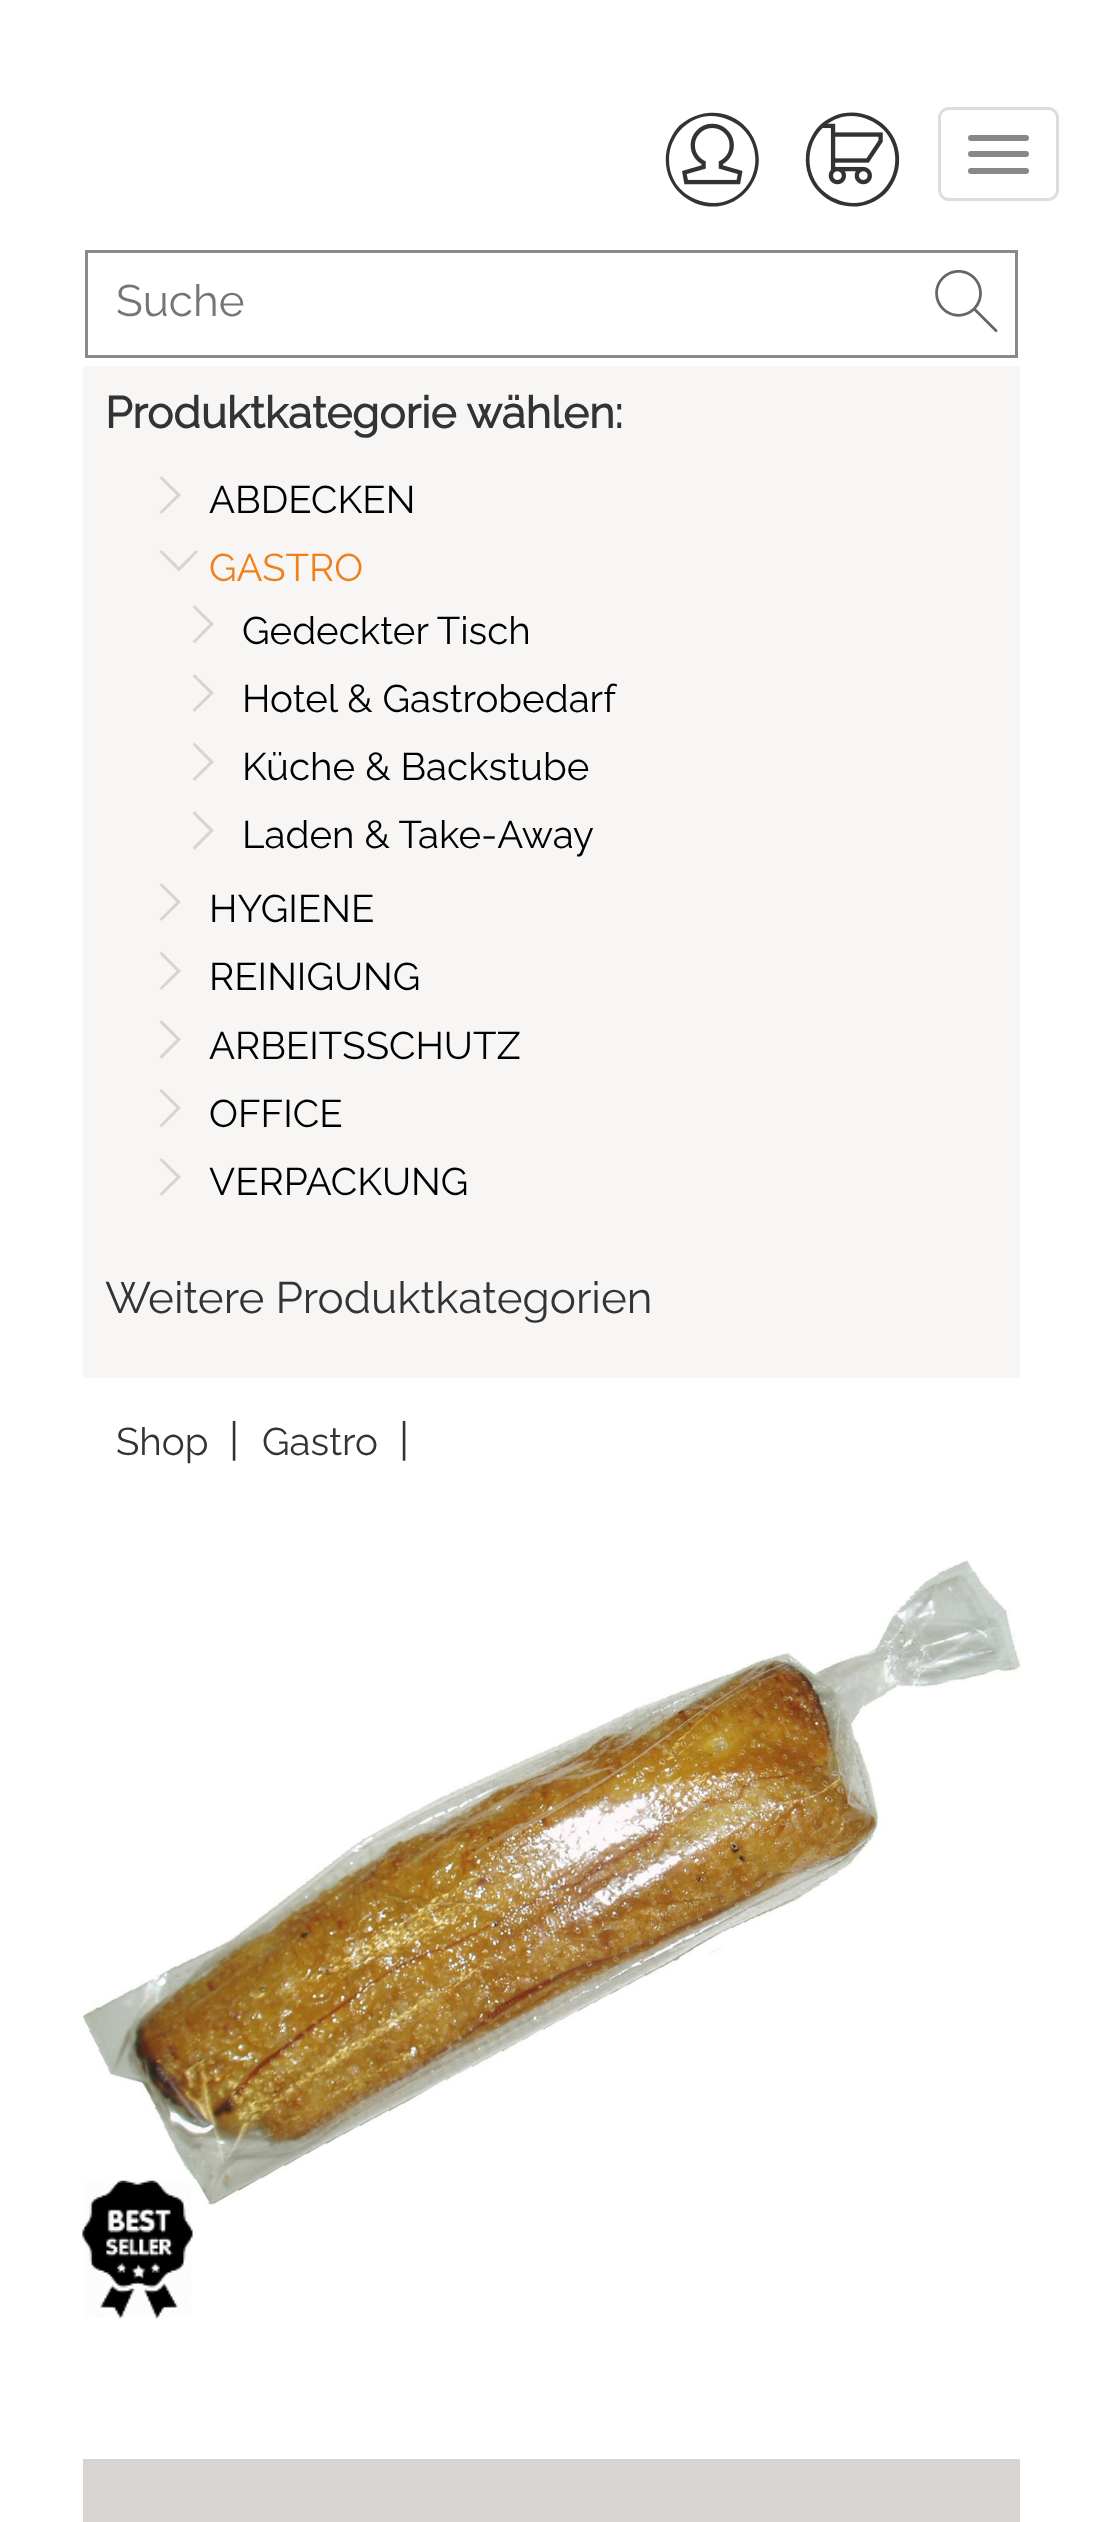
<svg xmlns="http://www.w3.org/2000/svg" width="1102" height="2522" viewBox="0 0 1102 2522">
  <rect width="100%" height="100%" fill="#ffffff"/>
  <path d="M729 120C720 116 711 115 702 117C662 128 657 183 695 199C704 203 714 204 723 202C763 191 767 136 729 120ZM679 126C687 119 697 114 708 113C751 109 776 161 745 193C714 224 662 198 666 155C667 144 672 134 679 126Z" fill="#333333"/>
  <image x="682" y="123" width="61" height="62" href="img1.png"/>
  <path d="M869 120C861 116 851 115 842 117C802 128 798 183 836 199C844 203 854 204 863 202C903 191 907 136 869 120ZM819 126C851 95 903 121 899 164C898 175 893 185 886 193C854 224 802 198 806 155C807 144 812 134 819 126Z" fill="#333333"/>
  <image x="822" y="123" width="61" height="62" href="img2.png"/>
  <rect x="939.5" y="108.5" width="118" height="91" rx="9.5" fill="none" stroke="#dddddd" stroke-width="3"/>
  <rect x="968" y="135" width="61" height="6" rx="3" fill="#888888"/>
  <rect x="968" y="151" width="61" height="6" rx="3" fill="#888888"/>
  <rect x="968" y="168" width="61" height="6" rx="3" fill="#888888"/>
  <rect x="86.5" y="251.5" width="930" height="105" fill="none" stroke="#8a8a8a" stroke-width="3"/>
  <text x="116" y="316" font-family="Raleway" font-size="44" font-weight="100" fill="#757575">Suche</text>
  <image x="935" y="270" width="63" height="63" href="img3.png"/>
  <rect x="83" y="366" width="937" height="1012" fill="#f8f6f4"/>
  <text x="105" y="428" font-family="Raleway" font-size="44" font-weight="bold" fill="#333333">Produktkategorie wählen:</text>
  <path d="M161.5 476L181 495L161.5 514L159.5 512L176.5 495L159.5 478Z" fill="#d7d4d1"/>
  <text x="209" y="513" font-family="Raleway" font-size="38.5" font-weight="100" fill="#000000">ABDECKEN</text>
  <path d="M179 571.5L159.5 552L161.5 550L179 567L196 550L198 552Z" fill="#d7d4d1"/>
  <text x="209" y="581" font-family="Raleway" font-size="38.5" font-weight="100" fill="#f0801c">GASTRO</text>
  <path d="M194.5 605L214 624L194.5 643.5L192.5 641.5L209.5 624L192.5 607Z" fill="#d7d4d1"/>
  <text x="242" y="644" font-family="Raleway" font-size="38.5" font-weight="100" fill="#000000">Gedeckter Tisch</text>
  <path d="M194.5 674L214 693L194.5 712L192.5 710L209.5 693L192.5 676Z" fill="#d7d4d1"/>
  <text x="242" y="712" font-family="Raleway" font-size="38.5" font-weight="100" fill="#000000">Hotel &amp; Gastrobedarf</text>
  <path d="M194.5 742.5L214 762L194.5 781L192.5 779L209.5 762L192.5 744.5Z" fill="#d7d4d1"/>
  <text x="242" y="780" font-family="Raleway" font-size="38.5" font-weight="100" fill="#000000">Küche &amp; Backstube</text>
  <path d="M194.5 811L214 830.5L194.5 850L192.5 847.5L209.5 830.5L192.5 813.5Z" fill="#d7d4d1"/>
  <text x="242" y="848" font-family="Raleway" font-size="38.5" font-weight="100" fill="#000000">Laden &amp; Take-Away</text>
  <path d="M161.5 883L181 902L161.5 921L159.5 919L176.5 902L159.5 885Z" fill="#d7d4d1"/>
  <text x="209" y="922" font-family="Raleway" font-size="38.5" font-weight="100" fill="#000000">HYGIENE</text>
  <path d="M161.5 951.5L181 971L161.5 990L159.5 988L176.5 971L159.5 953.5Z" fill="#d7d4d1"/>
  <text x="209" y="990" font-family="Raleway" font-size="38.5" font-weight="100" fill="#000000">REINIGUNG</text>
  <path d="M161.5 1020L181 1039.5L161.5 1059L159.5 1056.5L176.5 1039.5L159.5 1022.5Z" fill="#d7d4d1"/>
  <text x="209" y="1059" font-family="Raleway" font-size="38.5" font-weight="100" fill="#000000">ARBEITSSCHUTZ</text>
  <path d="M161.5 1089L181 1108L161.5 1127.5L159.5 1125.5L176.5 1108L159.5 1091Z" fill="#d7d4d1"/>
  <text x="209" y="1127" font-family="Raleway" font-size="38.5" font-weight="100" fill="#000000">OFFICE</text>
  <path d="M161.5 1158L181 1177L161.5 1196L159.5 1194L176.5 1177L159.5 1160Z" fill="#d7d4d1"/>
  <text x="209" y="1195" font-family="Raleway" font-size="38.5" font-weight="100" fill="#000000">VERPACKUNG</text>
  <text x="105" y="1313" font-family="Raleway" font-size="44" font-weight="100" fill="#333333">Weitere Produktkategorien</text>
  <text x="116" y="1455" font-family="Raleway" font-size="38.5" font-weight="100" fill="#333333">Shop</text>
  <text x="229" y="1455" font-family="Raleway" font-size="44" font-weight="100" fill="#333333">|</text>
  <text x="262" y="1455" font-family="Raleway" font-size="38.5" font-weight="100" fill="#333333">Gastro</text>
  <text x="399" y="1455" font-family="Raleway" font-size="44" font-weight="100" fill="#333333">|</text>
  <image x="83" y="1560" width="938" height="646" href="img4.png"/>
  <image x="82" y="2180" width="111" height="139" href="img5.png"/>
  <rect x="83" y="2459" width="937" height="63" fill="#d8d4d1"/>
</svg>
